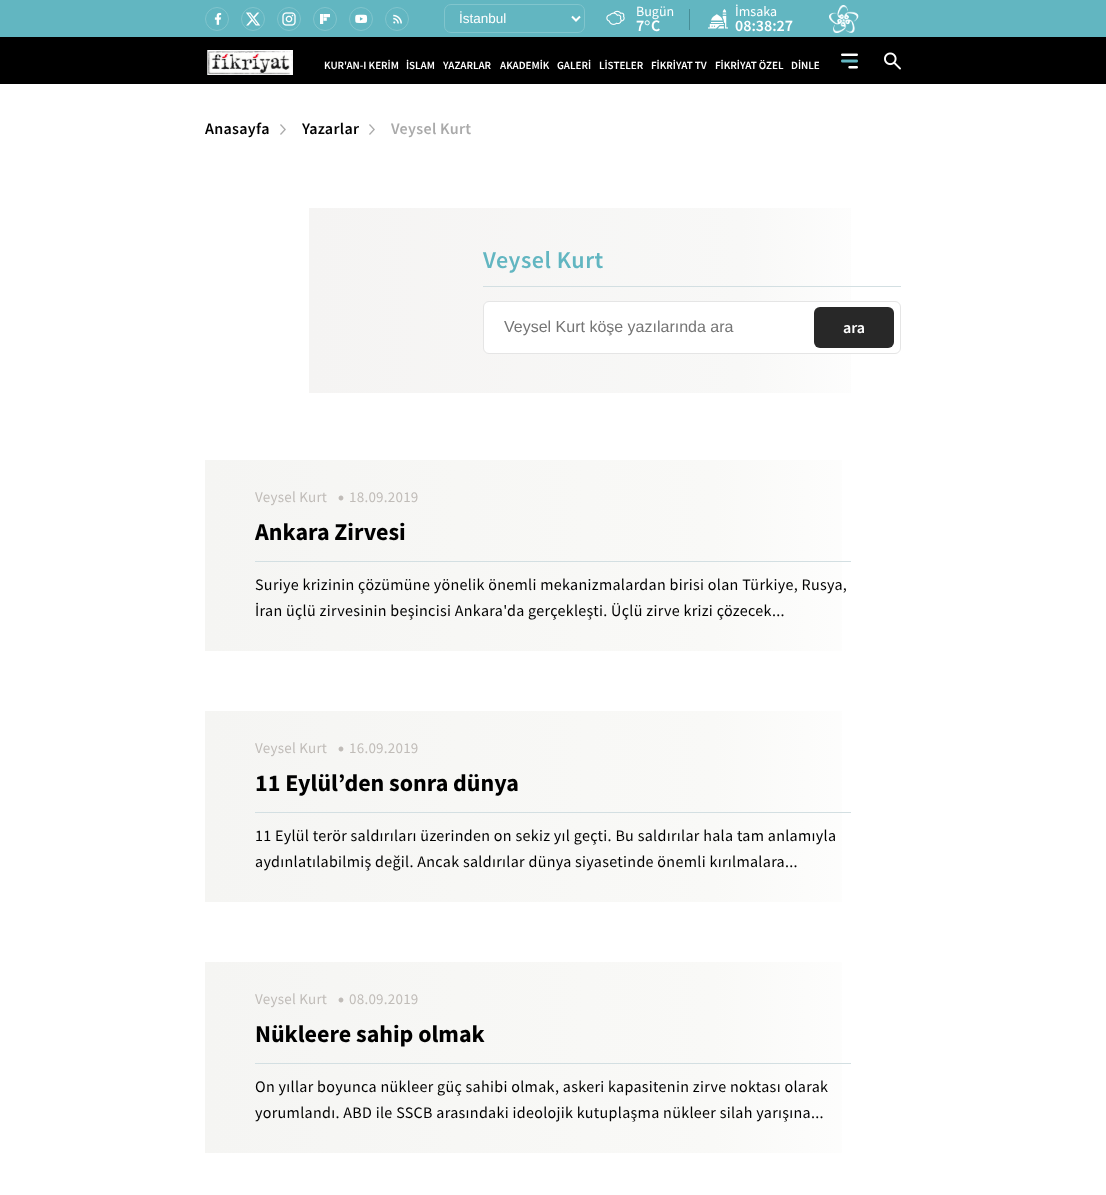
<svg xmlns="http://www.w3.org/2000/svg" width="1106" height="1195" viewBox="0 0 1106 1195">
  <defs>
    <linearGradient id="g1" gradientUnits="userSpaceOnUse" x1="901" y1="300" x2="309" y2="301"><stop offset="0" stop-color="#ffffff"/><stop offset="0.27" stop-color="#f8f8f7"/><stop offset="1" stop-color="#f5f4f3"/></linearGradient>
    <linearGradient id="g2" gradientUnits="userSpaceOnUse" x1="901" y1="555" x2="205" y2="556"><stop offset="0" stop-color="#ffffff"/><stop offset="0.27" stop-color="#f9f9f7"/><stop offset="1" stop-color="#f5f5f3"/></linearGradient>
    <linearGradient id="g3" gradientUnits="userSpaceOnUse" x1="901" y1="806" x2="205" y2="807"><stop offset="0" stop-color="#ffffff"/><stop offset="0.27" stop-color="#f9f9f7"/><stop offset="1" stop-color="#f5f5f3"/></linearGradient>
    <linearGradient id="g4" gradientUnits="userSpaceOnUse" x1="901" y1="1058" x2="205" y2="1058"><stop offset="0" stop-color="#ffffff"/><stop offset="0.27" stop-color="#f9f9f7"/><stop offset="1" stop-color="#f5f5f3"/></linearGradient>
  </defs>
  <rect width="100%" height="100%" fill="#ffffff"/>
  <rect x="0" y="0" width="1106" height="37" fill="#62b6c1"/>
  <circle cx="217" cy="19" r="11.5" fill="none" stroke="#81c5cd"/>
  <image x="214" y="12" width="8" height="13" href="img1.png"/>
  <circle cx="253" cy="19" r="11.5" fill="none" stroke="#81c5cd"/>
  <image x="246" y="12" width="15" height="14" href="img2.png"/>
  <circle cx="289" cy="19" r="11.5" fill="none" stroke="#81c5cd"/>
  <image x="282" y="12" width="14" height="14" href="img3.png"/>
  <circle cx="325" cy="19" r="11.5" fill="none" stroke="#81c5cd"/>
  <image x="320" y="14" width="10" height="10" href="img4.png"/>
  <circle cx="361" cy="19" r="11.5" fill="none" stroke="#81c5cd"/>
  <image x="355" y="14" width="13" height="9" href="img5.png"/>
  <circle cx="397" cy="19" r="11.5" fill="none" stroke="#81c5cd"/>
  <image x="393" y="14" width="9" height="10" href="img6.png"/>
  <rect x="444.5" y="4.5" width="140" height="28" rx="6.5" fill="none" stroke="#81c5cd"/>
  <path d="M572 16.5L576 20.5L580 16.5" fill="none" stroke="#ffffff" stroke-width="2"/>
  <text x="459" y="23" font-family="Liberation Sans" font-size="13.5" fill="#ffffff">İstanbul</text>
  <image x="606" y="10" width="19" height="15" href="img7.png"/>
  <text x="636" y="16" font-family="Source Sans Pro" font-size="14" fill="#ffffff">Bugün</text>
  <text x="636" y="31" font-family="Source Sans Pro" font-size="16" font-weight="600" fill="#ffffff">7</text>
  <text x="644" y="31" font-family="Liberation Serif" font-size="16" fill="#ffffff">°</text>
  <text x="651" y="31" font-family="Source Sans Pro" font-size="16" font-weight="600" fill="#ffffff">C</text>
  <rect x="689" y="9" width="1" height="21" fill="#488e97"/>
  <image x="708" y="9" width="20" height="20" href="img8.png"/>
  <text x="735" y="16" font-family="Source Sans Pro" font-size="14" fill="#ffffff">İmsaka</text>
  <text x="735" y="31" font-family="Source Sans Pro" font-size="16" font-weight="600" fill="#ffffff">08:38:27</text>
  <image x="829" y="5" width="30" height="28" href="img9.png"/>
  <rect x="0" y="37" width="1106" height="47" fill="#000000"/>
  <image x="207" y="50" width="86" height="25" href="img10.png"/>
  <text x="324" y="69" font-family="Source Sans Pro" font-size="11" font-weight="600" fill="#ffffff">KUR'AN-I KERİM</text>
  <text x="406" y="69" font-family="Source Sans Pro" font-size="11" font-weight="600" fill="#ffffff">İSLAM</text>
  <text x="443" y="69" font-family="Source Sans Pro" font-size="11" font-weight="600" fill="#ffffff">YAZARLAR</text>
  <text x="500" y="69" font-family="Source Sans Pro" font-size="11" font-weight="600" fill="#ffffff">AKADEMİK</text>
  <text x="557" y="69" font-family="Source Sans Pro" font-size="11" font-weight="600" fill="#ffffff">GALERİ</text>
  <text x="599" y="69" font-family="Source Sans Pro" font-size="11" font-weight="600" fill="#ffffff">LİSTELER</text>
  <text x="651" y="69" font-family="Source Sans Pro" font-size="11" font-weight="600" fill="#ffffff">FİKRİYAT TV</text>
  <text x="715" y="69" font-family="Source Sans Pro" font-size="11" font-weight="600" fill="#ffffff">FİKRİYAT ÖZEL</text>
  <text x="791" y="69" font-family="Source Sans Pro" font-size="11" font-weight="600" fill="#ffffff">DİNLE</text>
  <image x="841" y="53" width="17" height="16" href="img11.png"/>
  <image x="884" y="52" width="17" height="18" href="img12.png"/>
  <text x="205" y="134" font-family="Source Sans Pro" font-size="16" font-weight="600" letter-spacing="0.32" fill="#000000">Anasayfa</text>
  <image x="280" y="124" width="6" height="11" href="img13.png"/>
  <text x="302" y="134" font-family="Source Sans Pro" font-size="16" font-weight="600" letter-spacing="0.32" fill="#000000">Yazarlar</text>
  <image x="369" y="124" width="6" height="11" href="img13.png"/>
  <text x="391" y="134" font-family="Source Sans Pro" font-size="16" font-weight="600" letter-spacing="0.32" fill="#aaaaaa">Veysel Kurt</text>
  <rect x="309" y="208" width="542" height="185" fill="url(#g1)"/>
  <rect x="483" y="286" width="418" height="1" fill="#d3dfe2"/>
  <text x="483" y="268" font-family="Source Sans Pro" font-size="24" font-weight="600" letter-spacing="0.5" fill="#62b6c1">Veysel Kurt</text>
  <rect x="483.5" y="301.5" width="417" height="52" rx="5.5" fill="#ffffff" stroke="#e5e5e5"/>
  <text x="504" y="332" font-family="Liberation Sans" font-size="16" fill="#757575">Veysel Kurt köşe yazılarında ara</text>
  <rect x="814" y="307" width="80" height="41" rx="6" fill="#282828"/>
  <text x="843" y="333" font-family="Source Sans Pro" font-size="16" font-weight="600" fill="#ffffff">ara</text>
  <rect x="205" y="460" width="637" height="191" fill="url(#g2)"/>
  <text x="255" y="502" font-family="Source Sans Pro" font-size="15" letter-spacing="0.25" fill="#c0bcb8">Veysel Kurt</text>
  <text x="336" y="500" font-family="Source Sans Pro" font-size="40" letter-spacing="0.25" fill="#c0bcb8">.</text>
  <text x="349" y="502" font-family="Source Sans Pro" font-size="15" letter-spacing="0.25" fill="#c0bcb8">18.09.2019</text>
  <rect x="255" y="561" width="596" height="1" fill="#d3dfe2"/>
  <text x="255" y="540" font-family="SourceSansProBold" font-size="24" font-weight="bold" fill="#000000">Ankara Zirvesi</text>
  <text x="255" y="590" font-family="Source Sans Pro" font-size="16" letter-spacing="0.32" fill="#000000">Suriye krizinin çözümüne yönelik önemli mekanizmalardan birisi olan Türkiye, Rusya,</text>
  <text x="255" y="616" font-family="Source Sans Pro" font-size="16" letter-spacing="0.32" fill="#000000">İran üçlü zirvesinin beşincisi Ankara'da gerçekleşti. Üçlü zirve krizi çözecek...</text>
  <rect x="205" y="711" width="637" height="191" fill="url(#g3)"/>
  <text x="255" y="753" font-family="Source Sans Pro" font-size="15" letter-spacing="0.25" fill="#c0bcb8">Veysel Kurt</text>
  <text x="336" y="751" font-family="Source Sans Pro" font-size="40" letter-spacing="0.25" fill="#c0bcb8">.</text>
  <text x="349" y="753" font-family="Source Sans Pro" font-size="15" letter-spacing="0.25" fill="#c0bcb8">16.09.2019</text>
  <rect x="255" y="812" width="596" height="1" fill="#d3dfe2"/>
  <text x="255" y="791" font-family="SourceSansProBold" font-size="24" font-weight="bold" fill="#000000">11 Eylül’den sonra dünya</text>
  <text x="255" y="841" font-family="Source Sans Pro" font-size="16" letter-spacing="0.32" fill="#000000">11 Eylül terör saldırıları üzerinden on sekiz yıl geçti. Bu saldırılar hala tam anlamıyla</text>
  <text x="255" y="867" font-family="Source Sans Pro" font-size="16" letter-spacing="0.32" fill="#000000">aydınlatılabilmiş değil. Ancak saldırılar dünya siyasetinde önemli kırılmalara...</text>
  <rect x="205" y="962" width="637" height="191" fill="url(#g4)"/>
  <text x="255" y="1004" font-family="Source Sans Pro" font-size="15" letter-spacing="0.25" fill="#c0bcb8">Veysel Kurt</text>
  <text x="336" y="1002" font-family="Source Sans Pro" font-size="40" letter-spacing="0.25" fill="#c0bcb8">.</text>
  <text x="349" y="1004" font-family="Source Sans Pro" font-size="15" letter-spacing="0.25" fill="#c0bcb8">08.09.2019</text>
  <rect x="255" y="1063" width="596" height="1" fill="#d3dfe2"/>
  <text x="255" y="1042" font-family="SourceSansProBold" font-size="24" font-weight="bold" fill="#000000">Nükleere sahip olmak</text>
  <text x="255" y="1092" font-family="Source Sans Pro" font-size="16" letter-spacing="0.32" fill="#000000">On yıllar boyunca nükleer güç sahibi olmak, askeri kapasitenin zirve noktası olarak</text>
  <text x="255" y="1118" font-family="Source Sans Pro" font-size="16" letter-spacing="0.32" fill="#000000">yorumlandı. ABD ile SSCB arasındaki ideolojik kutuplaşma nükleer silah yarışına...</text>
</svg>
